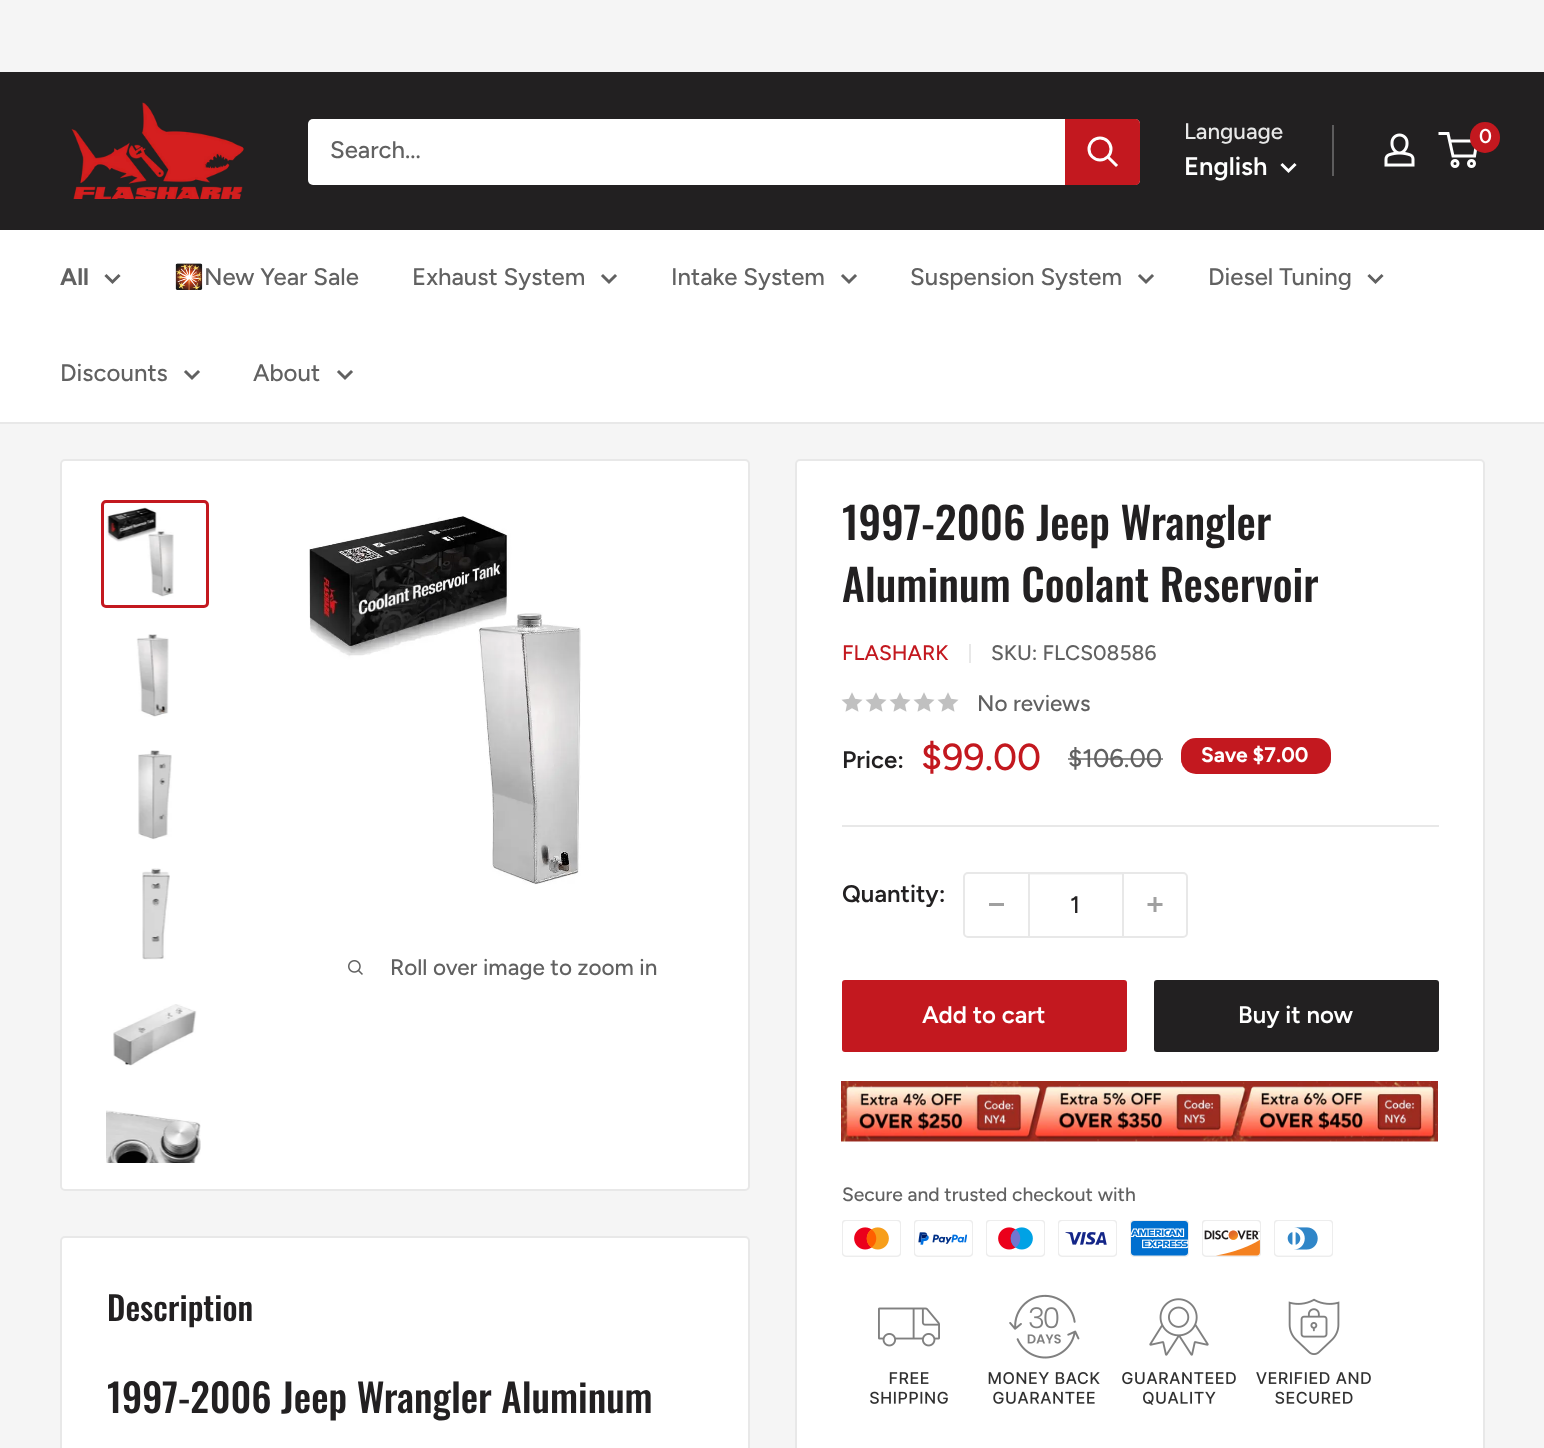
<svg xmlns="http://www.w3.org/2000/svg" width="1544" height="1448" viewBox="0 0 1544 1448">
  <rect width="100%" height="100%" fill="#f5f5f5"/>
  <rect x="0" y="72" width="1544" height="158" fill="#222021"/>
  <image x="71" y="102" width="173" height="97" href="img1.png"/>
  <rect x="308" y="119" width="832" height="66" rx="5" fill="#ffffff"/>
  <text x="330" y="158" font-family="Figtree" font-size="24" font-weight="500" fill="#616161">Search...</text>
  <path d="M1065 119H1135C1138 119 1140 121 1140 124V180C1140 183 1138 185 1135 185H1065Z" fill="#c3181f"/>
  <path d="M1116 165L1108.5 157.5" fill="none" stroke="#ffffff" stroke-width="3" stroke-linecap="square"/>
  <circle cx="1100" cy="149" r="11" fill="none" stroke="#ffffff" stroke-width="3"/>
  <text x="1184" y="139" font-family="Figtree" font-size="22.5" font-weight="500" fill="#e8e8e8">Language</text>
  <text x="1184" y="175" font-family="Figtree" font-size="25.5" font-weight="600" fill="#ffffff">English</text>
  <path d="M1294.5 165L1288.5 171L1282.5 165" fill="none" stroke="#ffffff" stroke-width="3" stroke-linecap="square"/>
  <rect x="1332" y="125" width="2" height="51" fill="#5d5c5d"/>
  <image x="1384" y="133" width="31" height="34" href="img2.png"/>
  <circle cx="1455" cy="163.5" r="3" fill="none" stroke="#ffffff" stroke-width="3"/>
  <circle cx="1471.5" cy="163.5" r="3" fill="none" stroke="#ffffff" stroke-width="3"/>
  <path d="M1449.5 141H1477L1474.5 156H1453L1448 133.5H1438.5" fill="none" stroke="#ffffff" stroke-width="3"/>
  <rect x="1470" y="122" width="30" height="31" rx="15" fill="#c3181f"/>
  <text x="1479" y="143" font-family="Figtree" font-size="20" font-weight="600" fill="#ffffff">0</text>
  <rect x="0" y="230" width="1544" height="192" fill="#ffffff"/>
  <rect x="0" y="422" width="1544" height="2" fill="#e8e8e8"/>
  <text x="60" y="285" font-family="Figtree" font-size="24" font-weight="bold" fill="#616161">All</text>
  <path d="M118.5 276L112.5 282L106.5 276" fill="none" stroke="#616161" stroke-width="3" stroke-linecap="square"/>
  <text x="174" y="285" font-family="Noto Color Emoji" font-size="24" fill="#616161">🎇</text>
  <text x="204" y="285" font-family="Figtree" font-size="24" font-weight="500" fill="#616161">New Year Sale</text>
  <text x="412" y="285" font-family="Figtree" font-size="24" font-weight="500" fill="#616161">Exhaust System</text>
  <path d="M615 276L609 282L603 276" fill="none" stroke="#616161" stroke-width="3" stroke-linecap="square"/>
  <text x="671" y="285" font-family="Figtree" font-size="24" font-weight="500" fill="#616161">Intake System</text>
  <path d="M855 276L849 282L843 276" fill="none" stroke="#616161" stroke-width="3" stroke-linecap="square"/>
  <text x="910" y="285" font-family="Figtree" font-size="24" font-weight="500" fill="#616161">Suspension System</text>
  <path d="M1152 276L1146 282L1140 276" fill="none" stroke="#616161" stroke-width="3" stroke-linecap="square"/>
  <text x="1208" y="285" font-family="Figtree" font-size="24" font-weight="500" fill="#616161">Diesel Tuning</text>
  <path d="M1381.5 276L1375.5 282L1369.5 276" fill="none" stroke="#616161" stroke-width="3" stroke-linecap="square"/>
  <text x="60" y="381" font-family="Figtree" font-size="24" font-weight="500" fill="#616161">Discounts</text>
  <path d="M198 372L192 378L186 372" fill="none" stroke="#616161" stroke-width="3" stroke-linecap="square"/>
  <text x="253" y="381" font-family="Figtree" font-size="24" font-weight="500" fill="#616161">About</text>
  <path d="M351 372L345 378L339 372" fill="none" stroke="#616161" stroke-width="3" stroke-linecap="square"/>
  <rect x="61" y="460" width="688" height="730" rx="4" fill="#ffffff" stroke="#e8e8e8" stroke-width="2"/>
  <rect x="102.5" y="501.5" width="105" height="105" rx="3.5" fill="none" stroke="#c3181f" stroke-width="3"/>
  <image x="106" y="507" width="68" height="90" href="img3.png"/>
  <image x="136" y="634" width="33" height="83" href="img4.png"/>
  <image x="138" y="750" width="34" height="90" href="img5.png"/>
  <image x="142" y="868" width="28" height="92" href="img6.png"/>
  <image x="113" y="1004" width="84" height="62" href="img7.png"/>
  <image x="106" y="1110" width="95" height="53" href="img8.png"/>
  <image x="309" y="516" width="272" height="369" href="img9.png"/>
  <image x="348" y="960" width="15" height="15" href="img10.png"/>
  <text x="390" y="975" font-family="Figtree" font-size="22.5" font-weight="500" fill="#616161">Roll over image to zoom in</text>
  <rect x="796" y="460" width="688" height="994" rx="4" fill="#ffffff" stroke="#e8e8e8" stroke-width="2"/>
  <text x="842" y="540" font-family="Oswald" font-size="43.5" font-weight="500" fill="#222021">1997-2006 Jeep Wrangler</text>
  <text x="842" y="602" font-family="Oswald" font-size="43.5" font-weight="500" fill="#222021">Aluminum Coolant Reservoir</text>
  <text x="842" y="660" font-family="Figtree" font-size="21" font-weight="500" fill="#c3181f">FLASHARK</text>
  <rect x="969" y="644" width="2" height="19" fill="#e8e8e8"/>
  <text x="991" y="660" font-family="Figtree" font-size="21" font-weight="500" fill="#616161">SKU: FLCS08586</text>
  <image x="841" y="692" width="22" height="20" href="img11.png"/>
  <image x="865" y="692" width="22" height="20" href="img11.png"/>
  <image x="889" y="692" width="22" height="20" href="img11.png"/>
  <image x="913" y="692" width="22" height="20" href="img11.png"/>
  <image x="937" y="692" width="22" height="20" href="img11.png"/>
  <text x="977" y="711" font-family="Figtree" font-size="22.5" font-weight="500" fill="#616161">No reviews</text>
  <text x="842" y="768" font-family="Figtree" font-size="24" font-weight="600" fill="#222021">Price:</text>
  <text x="921" y="770" font-family="Figtree" font-size="37.5" font-weight="500" fill="#c3181f">$99.00</text>
  <text x="1068" y="767" font-family="Figtree" font-size="25.5" font-weight="500" fill="#616161">$106.00</text>
  <rect x="1068" y="758" width="95" height="2" fill="#616161" fill-opacity="0.7"/>
  <rect x="1181" y="738" width="150" height="36" rx="15" fill="#c3181f"/>
  <text x="1201" y="762" font-family="Figtree" font-size="21" font-weight="bold" fill="#ffffff">Save $7.00</text>
  <rect x="842" y="825" width="597" height="2" fill="#e8e8e8"/>
  <text x="842" y="902" font-family="Figtree" font-size="24" font-weight="600" fill="#222021">Quantity:</text>
  <rect x="964" y="873" width="223" height="64" rx="4" fill="none" stroke="#e8e8e8" stroke-width="2"/>
  <rect x="989" y="903" width="15" height="3" fill="#a0a0a0"/>
  <rect x="1029" y="874" width="93" height="1" fill="#e8e8e8" fill-opacity="0.4"/>
  <rect x="1122" y="873" width="2" height="63" fill="#e8e8e8"/>
  <rect x="1028" y="873" width="2" height="63" fill="#e8e8e8"/>
  <text x="1070" y="913" font-family="Figtree" font-size="24" font-weight="500" fill="#222021">1</text>
  <image x="1147" y="897" width="16" height="15" href="img12.png"/>
  <rect x="842" y="980" width="285" height="72" rx="3" fill="#c3181f"/>
  <text x="922" y="1023" font-family="Figtree" font-size="24" font-weight="600" fill="#ffffff">Add to cart</text>
  <rect x="1154" y="980" width="285" height="72" rx="3" fill="#222021"/>
  <text x="1238" y="1023" font-family="Figtree" font-size="24" font-weight="600" fill="#ffffff">Buy it now</text>
  <image x="841" y="1081" width="597" height="61" href="img13.png"/>
  <text x="842" y="1201" font-family="Figtree" font-size="19.25" font-weight="500" fill="#616161">Secure and trusted checkout with</text>
  <image x="842" y="1220" width="59" height="37" href="img14.png"/>
  <image x="914" y="1220" width="59" height="37" href="img15.png"/>
  <image x="986" y="1220" width="59" height="37" href="img16.png"/>
  <image x="1058" y="1220" width="59" height="37" href="img17.png"/>
  <image x="1130" y="1220" width="59" height="37" href="img18.png"/>
  <image x="1202" y="1220" width="59" height="37" href="img19.png"/>
  <image x="1274" y="1220" width="59" height="37" href="img20.png"/>
  <image x="870" y="1307" width="78" height="97" href="img21.png"/>
  <image x="988" y="1294" width="112" height="110" href="img22.png"/>
  <image x="1122" y="1298" width="114" height="107" href="img23.png"/>
  <image x="1256" y="1298" width="115" height="106" href="img24.png"/>
  <rect x="61" y="1237" width="688" height="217" rx="4" fill="#ffffff" stroke="#e8e8e8" stroke-width="2"/>
  <text x="107" y="1321" font-family="Oswald" font-size="33" font-weight="500" fill="#222021">Description</text>
  <text x="107" y="1413" font-family="Oswald" font-size="39" font-weight="500" fill="#222021">1997-2006 Jeep Wrangler Aluminum</text>
</svg>
